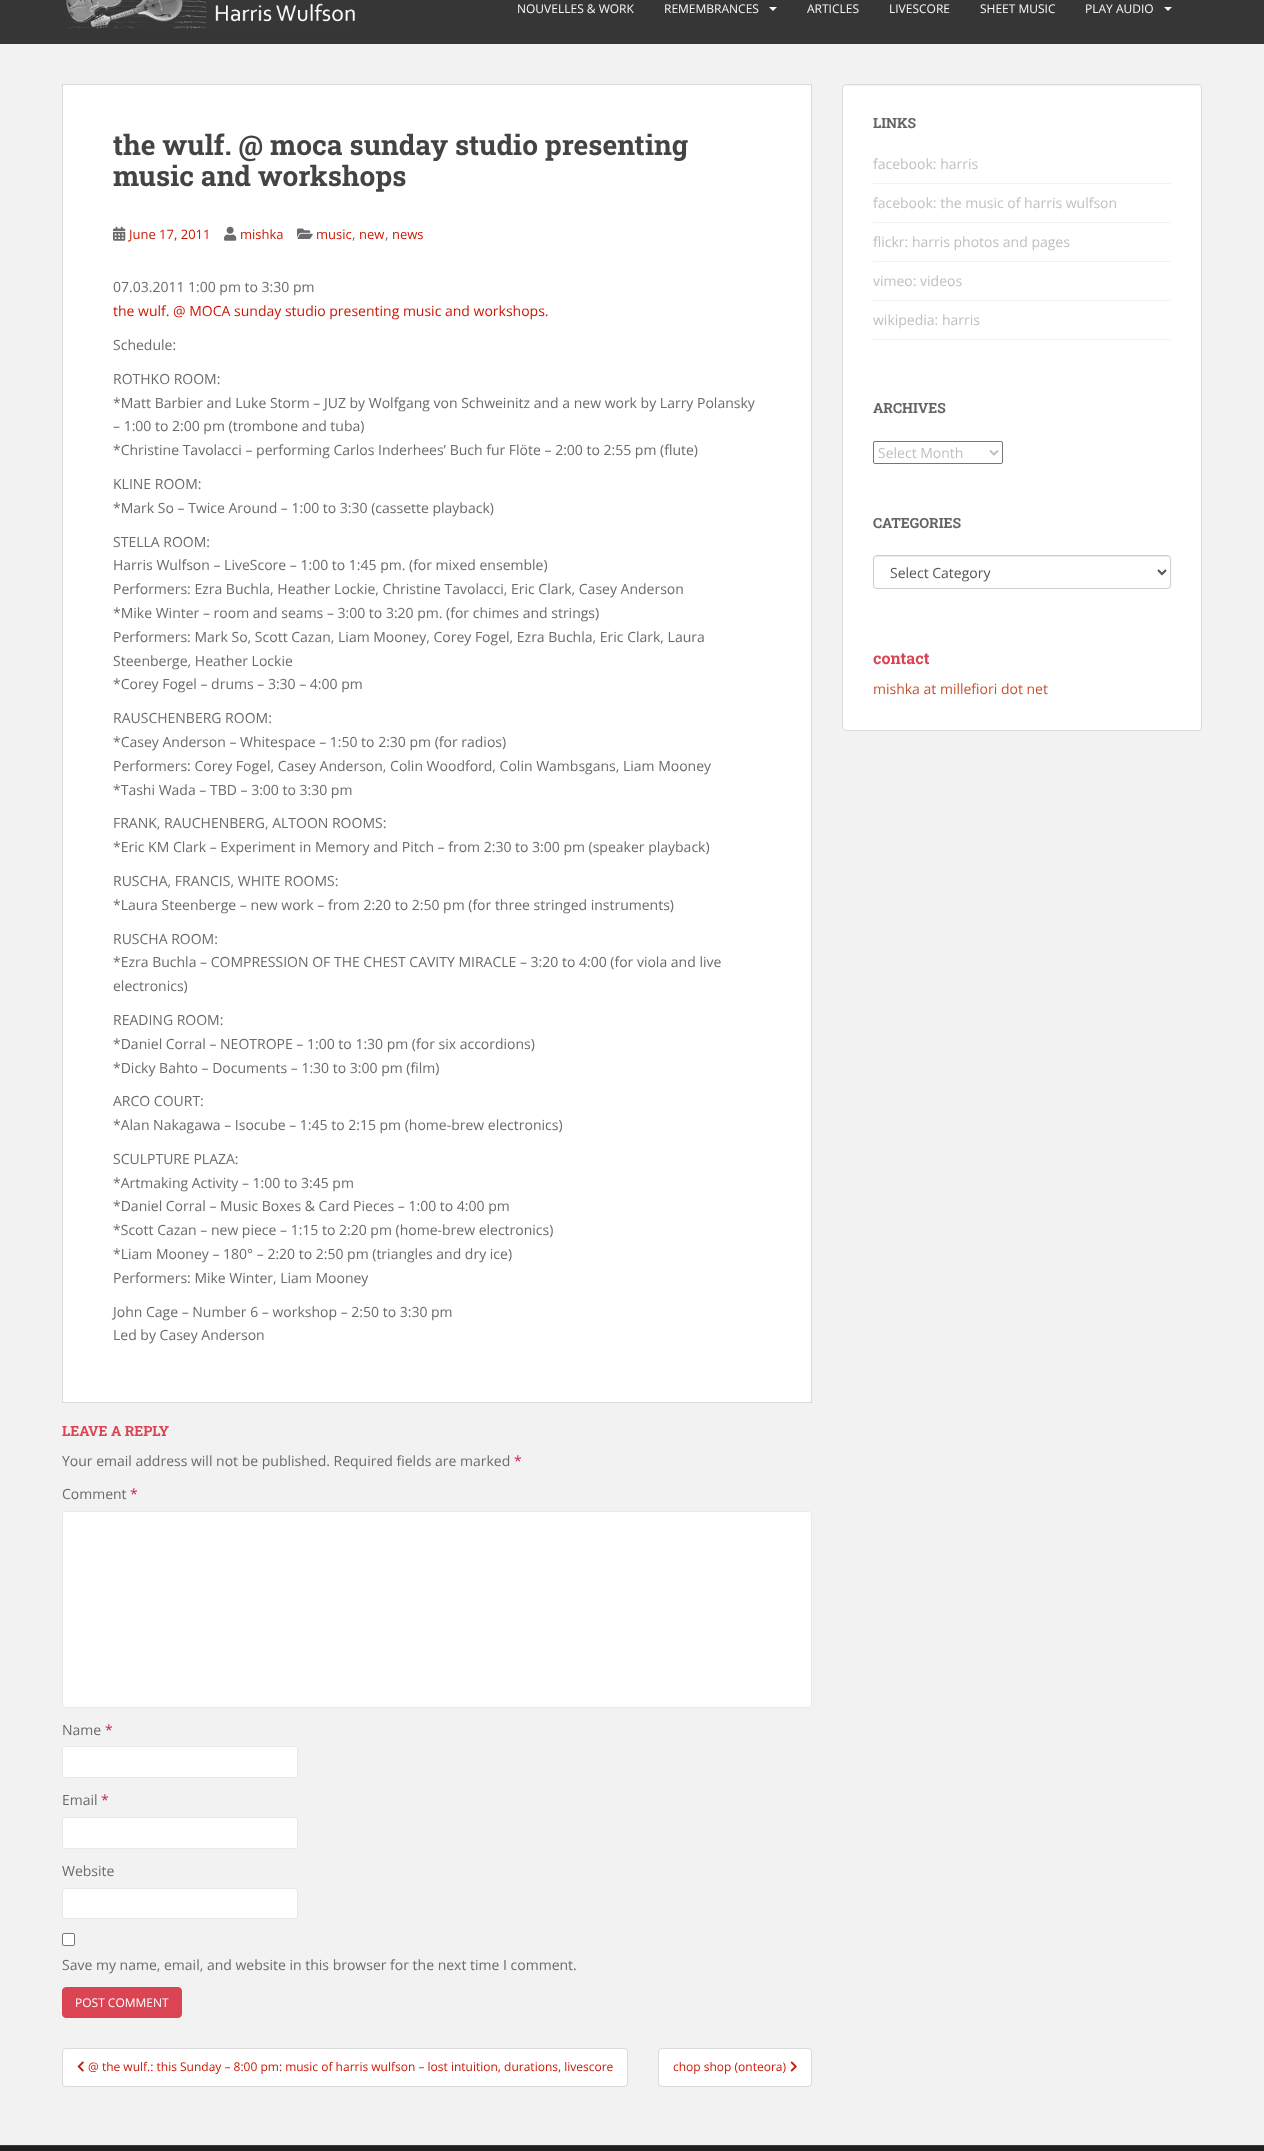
<svg xmlns="http://www.w3.org/2000/svg" width="1264" height="2151" viewBox="0 0 1264 2151">
  <rect width="100%" height="100%" fill="#f2f2f2"/>
  <rect x="0" y="0" width="1264" height="44" fill="#363636"/>
  <image x="66" y="0" width="289" height="29" href="img1.png"/>
  <text x="517" y="13" font-family="Open Sans" font-size="12" fill="#f5f7fa">NOUVELLES &amp; WORK</text>
  <text x="664" y="13" font-family="Open Sans" font-size="12" fill="#f5f7fa">REMEMBRANCES</text>
  <path d="M769 7H777L773 11Z" fill="#f5f7fa"/>
  <text x="807" y="13" font-family="Open Sans" font-size="12" fill="#f5f7fa">ARTICLES</text>
  <text x="889" y="13" font-family="Open Sans" font-size="12" fill="#f5f7fa">LIVESCORE</text>
  <text x="980" y="13" font-family="Open Sans" font-size="12" fill="#f5f7fa">SHEET MUSIC</text>
  <text x="1085" y="13" font-family="Open Sans" font-size="12" fill="#f5f7fa">PLAY AUDIO</text>
  <path d="M1164 7H1172L1168 11Z" fill="#f5f7fa"/>
  <rect x="62.5" y="84.5" width="749" height="1318" fill="#ffffff" stroke="#dadada"/>
  <text x="113" y="155" font-family="Roboto Slab" font-size="28" font-weight="bold" fill="#444444">the wulf. @ moca sunday studio presenting</text>
  <text x="113" y="186" font-family="Roboto Slab" font-size="28" font-weight="bold" fill="#444444">music and workshops</text>
  <image x="113" y="226" width="13" height="15" href="img2.png"/>
  <text x="129" y="239" font-family="Open Sans" font-size="13" fill="#cc1804">June 17, 2011</text>
  <image x="224" y="226" width="13" height="15" href="img3.png"/>
  <text x="240" y="239" font-family="Open Sans" font-size="13" fill="#cc1804">mishka</text>
  <image x="297" y="228" width="16" height="11" href="img4.png"/>
  <text x="316" y="239" font-family="Open Sans" font-size="13" fill="#cc1804">music</text>
  <text x="352" y="239" font-family="Open Sans" font-size="14" fill="#6b6b6b">,</text>
  <text x="359" y="239" font-family="Open Sans" font-size="13" fill="#cc1804">new</text>
  <text x="385" y="239" font-family="Open Sans" font-size="14" fill="#6b6b6b">,</text>
  <text x="392" y="239" font-family="Open Sans" font-size="13" fill="#cc1804">news</text>
  <text x="113" y="292" font-family="Open Sans" font-size="14" fill="#6b6b6b">07.03.2011 1:00 pm to 3:30 pm</text>
  <text x="113" y="316" font-family="Open Sans" font-size="14" fill="#cc1804">the wulf. @ MOCA sunday studio presenting music and workshops.</text>
  <text x="113" y="350" font-family="Open Sans" font-size="14" fill="#6b6b6b">Schedule:</text>
  <text x="113" y="384" font-family="Open Sans" font-size="14" fill="#6b6b6b">ROTHKO ROOM:</text>
  <text x="113" y="408" font-family="Open Sans" font-size="14" fill="#6b6b6b">*Matt Barbier and Luke Storm – JUZ by Wolfgang von Schweinitz and a new work by Larry Polansky</text>
  <text x="113" y="431" font-family="Open Sans" font-size="14" fill="#6b6b6b">– 1:00 to 2:00 pm (trombone and tuba)</text>
  <text x="113" y="455" font-family="Open Sans" font-size="14" fill="#6b6b6b">*Christine Tavolacci – performing Carlos Inderhees’ Buch fur Flöte – 2:00 to 2:55 pm (flute)</text>
  <text x="113" y="489" font-family="Open Sans" font-size="14" fill="#6b6b6b">KLINE ROOM:</text>
  <text x="113" y="513" font-family="Open Sans" font-size="14" fill="#6b6b6b">*Mark So – Twice Around – 1:00 to 3:30 (cassette playback)</text>
  <text x="113" y="547" font-family="Open Sans" font-size="14" fill="#6b6b6b">STELLA ROOM:</text>
  <text x="113" y="570" font-family="Open Sans" font-size="14" fill="#6b6b6b">Harris Wulfson – LiveScore – 1:00 to 1:45 pm. (for mixed ensemble)</text>
  <text x="113" y="594" font-family="Open Sans" font-size="14" fill="#6b6b6b">Performers: Ezra Buchla, Heather Lockie, Christine Tavolacci, Eric Clark, Casey Anderson</text>
  <text x="113" y="618" font-family="Open Sans" font-size="14" fill="#6b6b6b">*Mike Winter – room and seams – 3:00 to 3:20 pm. (for chimes and strings)</text>
  <text x="113" y="642" font-family="Open Sans" font-size="14" fill="#6b6b6b">Performers: Mark So, Scott Cazan, Liam Mooney, Corey Fogel, Ezra Buchla, Eric Clark, Laura</text>
  <text x="113" y="666" font-family="Open Sans" font-size="14" fill="#6b6b6b">Steenberge, Heather Lockie</text>
  <text x="113" y="689" font-family="Open Sans" font-size="14" fill="#6b6b6b">*Corey Fogel – drums – 3:30 – 4:00 pm</text>
  <text x="113" y="723" font-family="Open Sans" font-size="14" fill="#6b6b6b">RAUSCHENBERG ROOM:</text>
  <text x="113" y="747" font-family="Open Sans" font-size="14" fill="#6b6b6b">*Casey Anderson – Whitespace – 1:50 to 2:30 pm (for radios)</text>
  <text x="113" y="771" font-family="Open Sans" font-size="14" fill="#6b6b6b">Performers: Corey Fogel, Casey Anderson, Colin Woodford, Colin Wambsgans, Liam Mooney</text>
  <text x="113" y="795" font-family="Open Sans" font-size="14" fill="#6b6b6b">*Tashi Wada – TBD – 3:00 to 3:30 pm</text>
  <text x="113" y="828" font-family="Open Sans" font-size="14" fill="#6b6b6b">FRANK, RAUCHENBERG, ALTOON ROOMS:</text>
  <text x="113" y="852" font-family="Open Sans" font-size="14" fill="#6b6b6b">*Eric KM Clark – Experiment in Memory and Pitch – from 2:30 to 3:00 pm (speaker playback)</text>
  <text x="113" y="886" font-family="Open Sans" font-size="14" fill="#6b6b6b">RUSCHA, FRANCIS, WHITE ROOMS:</text>
  <text x="113" y="910" font-family="Open Sans" font-size="14" fill="#6b6b6b">*Laura Steenberge – new work – from 2:20 to 2:50 pm (for three stringed instruments)</text>
  <text x="113" y="944" font-family="Open Sans" font-size="14" fill="#6b6b6b">RUSCHA ROOM:</text>
  <text x="113" y="967" font-family="Open Sans" font-size="14" fill="#6b6b6b">*Ezra Buchla – COMPRESSION OF THE CHEST CAVITY MIRACLE – 3:20 to 4:00 (for viola and live</text>
  <text x="113" y="991" font-family="Open Sans" font-size="14" fill="#6b6b6b">electronics)</text>
  <text x="113" y="1025" font-family="Open Sans" font-size="14" fill="#6b6b6b">READING ROOM:</text>
  <text x="113" y="1049" font-family="Open Sans" font-size="14" fill="#6b6b6b">*Daniel Corral – NEOTROPE – 1:00 to 1:30 pm (for six accordions)</text>
  <text x="113" y="1073" font-family="Open Sans" font-size="14" fill="#6b6b6b">*Dicky Bahto – Documents – 1:30 to 3:00 pm (film)</text>
  <text x="113" y="1106" font-family="Open Sans" font-size="14" fill="#6b6b6b">ARCO COURT:</text>
  <text x="113" y="1130" font-family="Open Sans" font-size="14" fill="#6b6b6b">*Alan Nakagawa – Isocube – 1:45 to 2:15 pm (home-brew electronics)</text>
  <text x="113" y="1164" font-family="Open Sans" font-size="14" fill="#6b6b6b">SCULPTURE PLAZA:</text>
  <text x="113" y="1188" font-family="Open Sans" font-size="14" fill="#6b6b6b">*Artmaking Activity – 1:00 to 3:45 pm</text>
  <text x="113" y="1211" font-family="Open Sans" font-size="14" fill="#6b6b6b">*Daniel Corral – Music Boxes &amp; Card Pieces – 1:00 to 4:00 pm</text>
  <text x="113" y="1235" font-family="Open Sans" font-size="14" fill="#6b6b6b">*Scott Cazan – new piece – 1:15 to 2:20 pm (home-brew electronics)</text>
  <text x="113" y="1259" font-family="Open Sans" font-size="14" fill="#6b6b6b">*Liam Mooney – 180° – 2:20 to 2:50 pm (triangles and dry ice)</text>
  <text x="113" y="1283" font-family="Open Sans" font-size="14" fill="#6b6b6b">Performers: Mike Winter, Liam Mooney</text>
  <text x="113" y="1317" font-family="Open Sans" font-size="14" fill="#6b6b6b">John Cage – Number 6 – workshop – 2:50 to 3:30 pm</text>
  <text x="113" y="1340" font-family="Open Sans" font-size="14" fill="#6b6b6b">Led by Casey Anderson</text>
  <text x="62" y="1436" font-family="Roboto Slab" font-size="14" font-weight="bold" fill="#da4453">LEAVE A REPLY</text>
  <text x="62" y="1466" font-family="Open Sans" font-size="14" fill="#6b6b6b">Your email address will not be published. Required fields are marked</text>
  <text x="514" y="1466" font-family="Open Sans" font-size="14" fill="#c7254e">*</text>
  <text x="62" y="1499" font-family="Open Sans" font-size="14" fill="#6b6b6b">Comment</text>
  <text x="130" y="1499" font-family="Open Sans" font-size="14" fill="#c7254e">*</text>
  <rect x="62.5" y="1511.5" width="749" height="196" rx="2.5" fill="#ffffff" stroke="#e8e8e8"/>
  <text x="62" y="1735" font-family="Open Sans" font-size="14" fill="#6b6b6b">Name</text>
  <text x="105" y="1735" font-family="Open Sans" font-size="14" fill="#c7254e">*</text>
  <rect x="62.5" y="1746.5" width="235" height="31" rx="2.5" fill="#ffffff" stroke="#e8e8e8"/>
  <text x="62" y="1805" font-family="Open Sans" font-size="14" fill="#6b6b6b">Email</text>
  <text x="101" y="1805" font-family="Open Sans" font-size="14" fill="#c7254e">*</text>
  <rect x="62.5" y="1817.5" width="235" height="31" rx="2.5" fill="#ffffff" stroke="#e8e8e8"/>
  <text x="62" y="1876" font-family="Open Sans" font-size="14" fill="#6b6b6b">Website</text>
  <rect x="62.5" y="1888.5" width="235" height="30" rx="2.5" fill="#ffffff" stroke="#e8e8e8"/>
  <rect x="62.5" y="1933.5" width="12" height="12" rx="1.5" fill="#ffffff" stroke="#767676"/>
  <text x="62" y="1970" font-family="Open Sans" font-size="14" fill="#6b6b6b">Save my name, email, and website in this browser for the next time I comment.</text>
  <rect x="62.5" y="1987.5" width="119" height="30" rx="3.5" fill="#da4453" stroke="#da4453"/>
  <text x="75" y="2007" font-family="Open Sans" font-size="12" fill="#ffffff">POST COMMENT</text>
  <rect x="62.5" y="2048.5" width="565" height="38" rx="3.5" fill="#ffffff" stroke="#dadada"/>
  <image x="77" y="2061" width="7" height="11" href="img5.png"/>
  <text x="88" y="2071" font-family="Open Sans" font-size="12" fill="#cc1804">@ the wulf.: this Sunday – 8:00 pm: music of harris wulfson – lost intuition, durations, livescore</text>
  <rect x="658.5" y="2048.5" width="153" height="38" rx="3.5" fill="#ffffff" stroke="#dadada"/>
  <text x="673" y="2071" font-family="Open Sans" font-size="12" fill="#cc1804">chop shop (onteora)</text>
  <image x="790" y="2061" width="7" height="11" href="img6.png"/>
  <rect x="842" y="84" width="360" height="647" rx="4" fill="#ffffff"/>
  <path d="M846 86H1198C1200 86 1201 87 1201 89C1201 87 1200 85 1198 85H846L844 86L843 89C843 87 844 86 846 86Z" fill="#f2f2f2"/>
  <rect x="842.5" y="84.5" width="359" height="646" rx="3.5" fill="none" stroke="#dadada"/>
  <text x="873" y="128" font-family="Roboto Slab" font-size="14" font-weight="bold" fill="#636467">LINKS</text>
  <rect x="873" y="183" width="298" height="1" fill="#f2f2f2"/>
  <text x="873" y="169" font-family="Open Sans" font-size="14" fill="#c1c0c0">facebook: harris</text>
  <rect x="873" y="222" width="298" height="1" fill="#f2f2f2"/>
  <text x="873" y="208" font-family="Open Sans" font-size="14" fill="#c1c0c0">facebook: the music of harris wulfson</text>
  <rect x="873" y="261" width="298" height="1" fill="#f2f2f2"/>
  <text x="873" y="247" font-family="Open Sans" font-size="14" fill="#c1c0c0">flickr: harris photos and pages</text>
  <rect x="873" y="300" width="298" height="1" fill="#f2f2f2"/>
  <text x="873" y="286" font-family="Open Sans" font-size="14" fill="#c1c0c0">vimeo: videos</text>
  <rect x="873" y="339" width="298" height="1" fill="#f2f2f2"/>
  <text x="873" y="325" font-family="Open Sans" font-size="14" fill="#c1c0c0">wikipedia: harris</text>
  <text x="873" y="413" font-family="Roboto Slab" font-size="14" font-weight="bold" fill="#636467">ARCHIVES</text>
  <rect x="873.5" y="441.5" width="129" height="22" rx="1.5" fill="none" stroke="#767676"/>
  <path d="M990 450.5L994 454.5L998 450.5" fill="none" stroke="#c1c0c0" stroke-width="2"/>
  <text x="878" y="458" font-family="Open Sans" font-size="14" fill="#c1c0c0">Select Month</text>
  <text x="873" y="528" font-family="Roboto Slab" font-size="14" font-weight="bold" fill="#636467">CATEGORIES</text>
  <path d="M877 557H1167C1169 557 1170 558 1170 560L1169 557L1168 556H877C875 556 874 558 874 560C874 558 875 557 877 557Z" fill="#ececec"/>
  <rect x="873.5" y="555.5" width="297" height="33" rx="3.5" fill="none" stroke="#cccccc"/>
  <path d="M1158 570L1162 574L1166 570" fill="none" stroke="#555555" stroke-width="2"/>
  <text x="890" y="578" font-family="Open Sans" font-size="14" fill="#555555">Select Category</text>
  <text x="873" y="664" font-family="Roboto Slab" font-size="16" font-weight="bold" fill="#da4453">contact</text>
  <text x="873" y="694" font-family="Open Sans" font-size="14" fill="#c7532d">mishka at millefiori dot net</text>
  <rect x="0" y="2146" width="1264" height="5" fill="#1f1f1f"/>
  <rect x="0" y="2145" width="1264" height="1" fill="#3a3a3a"/>
</svg>
